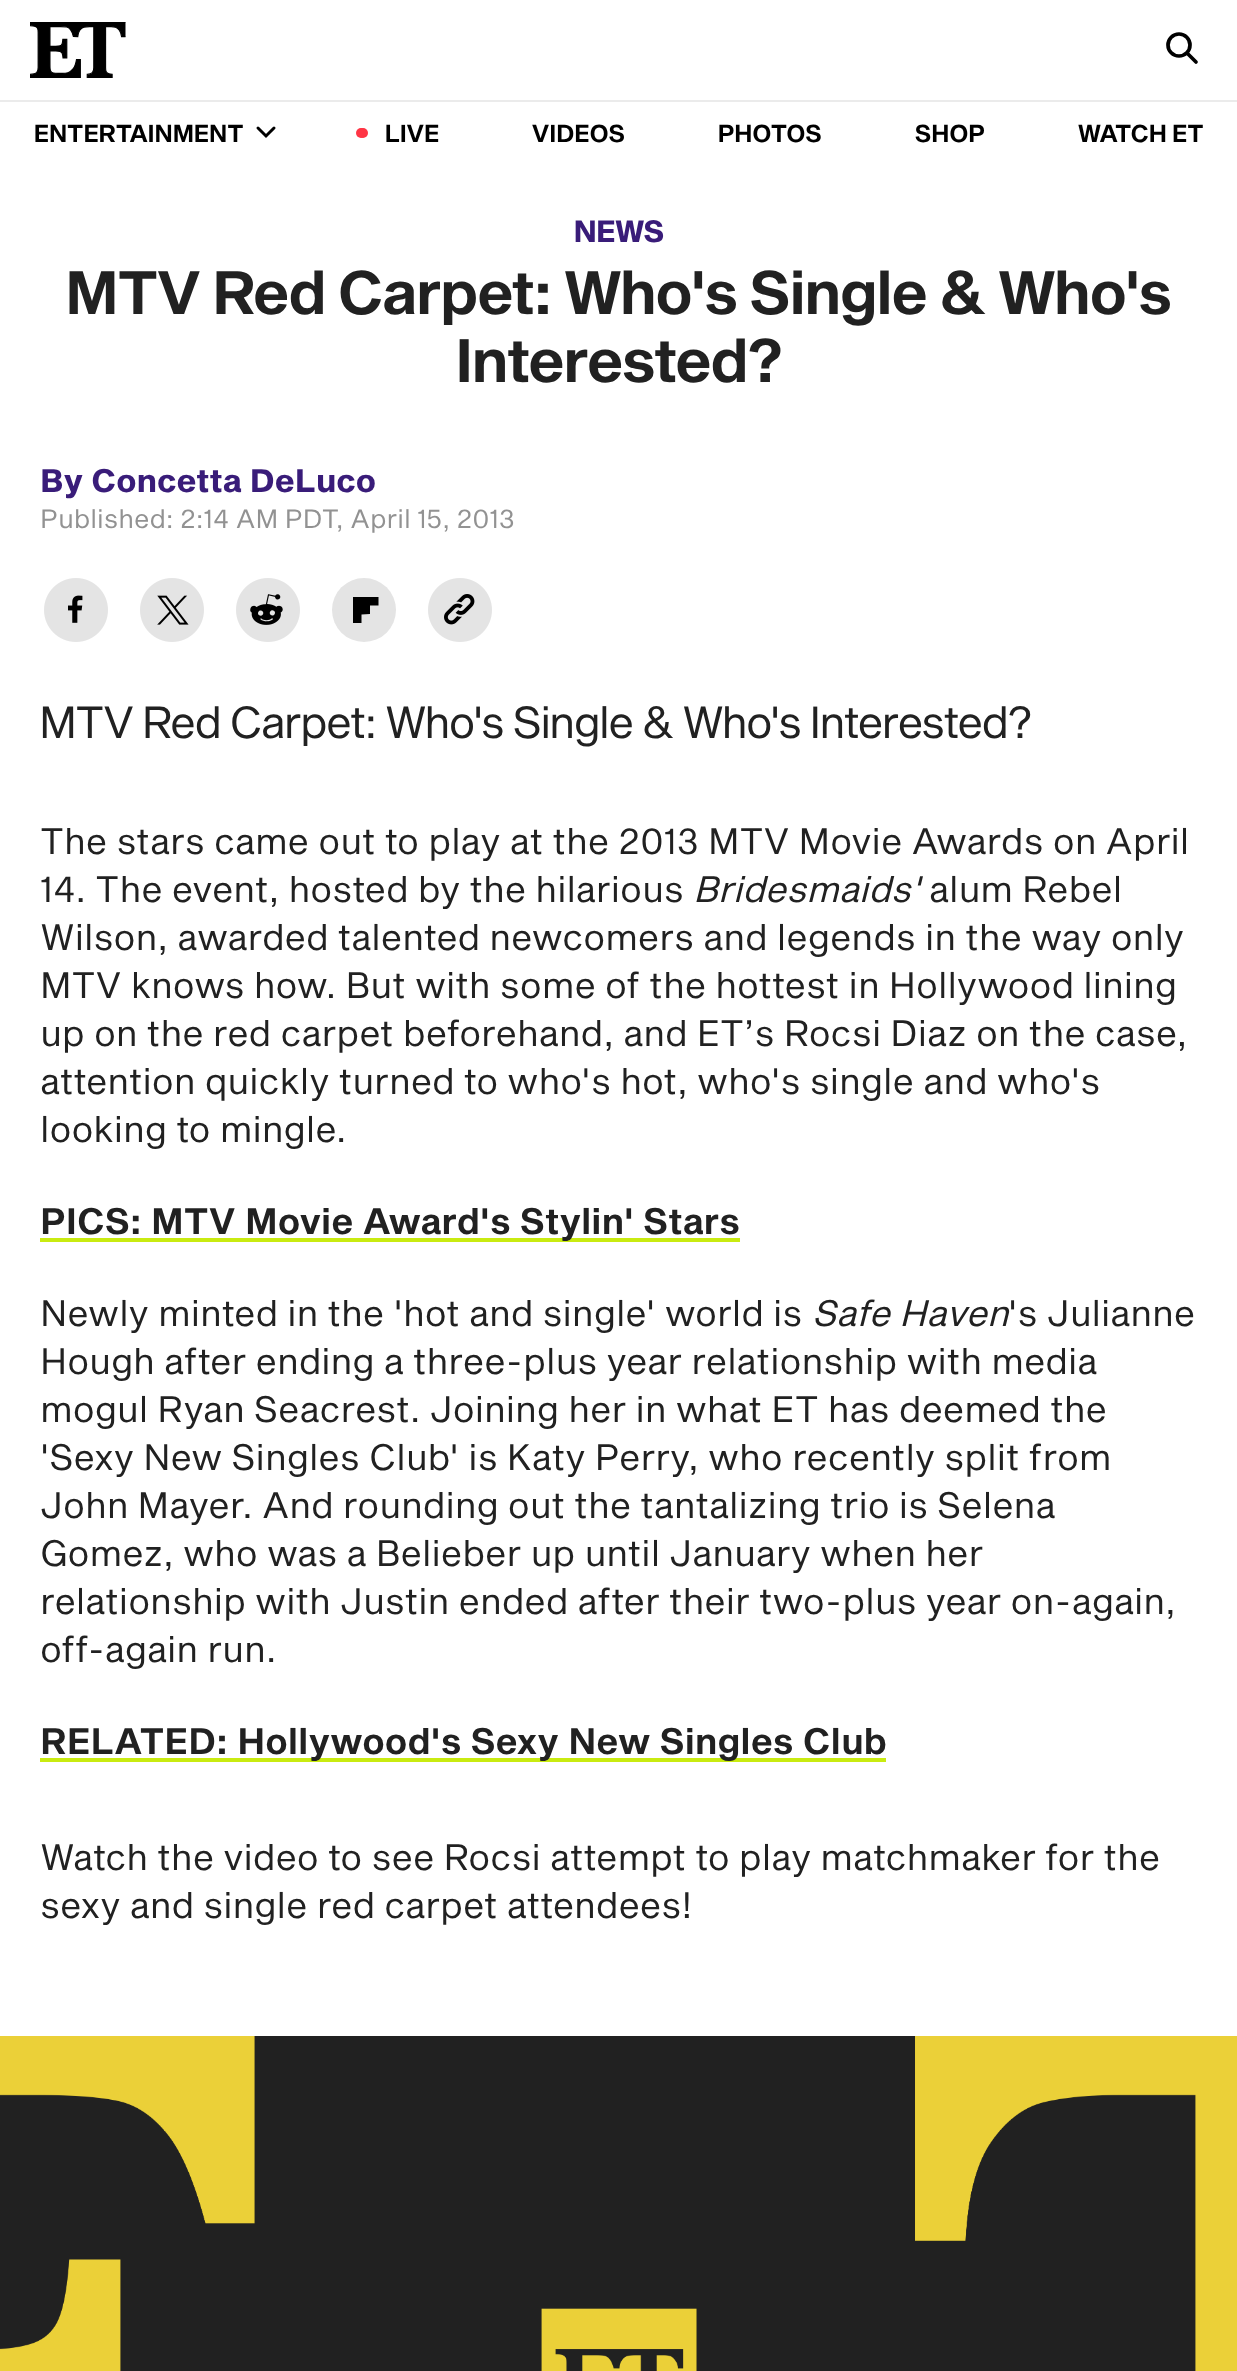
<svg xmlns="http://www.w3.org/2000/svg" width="1237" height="2371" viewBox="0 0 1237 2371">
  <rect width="100%" height="100%" fill="#ffffff"/>
  <image x="30" y="22" width="96" height="56" href="img1.png"/>
  <circle cx="1179" cy="45" r="11" fill="none" stroke="#000000" stroke-width="3.7"/>
  <path d="M1188 54L1196 62" fill="none" stroke="#000000" stroke-width="3.7" stroke-linecap="round" stroke-linejoin="round"/>
  <rect x="0" y="100" width="1237" height="2" fill="#ebebeb"/>
  <text x="34" y="142" font-family="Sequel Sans" font-size="24" font-weight="600" letter-spacing="0.4" fill="#000000">ENTERTAINMENT</text>
  <path d="M274 128L266 136L258 128" fill="none" stroke="#000000" stroke-width="3" stroke-linecap="round"/>
  <circle cx="363" cy="133" r="5" fill="#ff3545"/>
  <circle cx="361" cy="133" r="5" fill="#ff3545"/>
  <text x="385" y="142" font-family="Sequel Sans" font-size="24" font-weight="600" letter-spacing="0.4" fill="#000000">LIVE</text>
  <text x="532" y="142" font-family="Sequel Sans" font-size="24" font-weight="600" letter-spacing="0.4" fill="#000000">VIDEOS</text>
  <text x="718" y="142" font-family="Sequel Sans" font-size="24" font-weight="600" letter-spacing="0.4" fill="#000000">PHOTOS</text>
  <text x="915" y="142" font-family="Sequel Sans" font-size="24" font-weight="600" letter-spacing="0.4" fill="#000000">SHOP</text>
  <text x="1078" y="142" font-family="Sequel Sans" font-size="24" font-weight="600" letter-spacing="0.4" fill="#000000">WATCH ET</text>
  <text x="574" y="242" font-family="Sequel Sans" font-size="30" font-weight="bold" fill="#391c79">NEWS</text>
  <text x="66" y="314" font-family="Sequel Sans" font-size="60" font-weight="600" fill="#212121">MTV Red Carpet: Who's Single &amp; Who's</text>
  <text x="456" y="382" font-family="Sequel Sans" font-size="60" font-weight="600" fill="#212121">Interested?</text>
  <text x="40" y="492" font-family="'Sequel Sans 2'" font-size="32" font-weight="bold" fill="#391c79">By Concetta DeLuco</text>
  <text x="40" y="528" font-family="Sequel Sans" font-size="26" fill="#929292">Published: 2:14 AM PDT, April 15, 2013</text>
  <image x="44" y="578" width="64" height="64" href="img2.png"/>
  <image x="140" y="578" width="64" height="64" href="img3.png"/>
  <image x="236" y="578" width="64" height="64" href="img4.png"/>
  <circle cx="364" cy="610" r="32" fill="#e4e4e4"/>
  <path d="M353 610V623H361.5V614.5L370 614V605.5H378.5V597H353Z" fill="#000000"/>
  <image x="428" y="578" width="64" height="64" href="img5.png"/>
  <text x="40" y="738" font-family="'Sequel Sans 2'" font-size="44" fill="#212121">MTV Red Carpet: Who's Single &amp; Who's Interested?</text>
  <text x="40" y="854" font-family="Sequel Sans" font-size="36" fill="#212121">The stars came out to play at the 2013 MTV Movie Awards on April</text>
  <text x="40" y="902" font-family="Sequel Sans" font-size="36" fill="#212121">14. The event, hosted by the hilarious</text>
  <text x="693" y="902" font-family="Sequel Sans" font-size="36" font-style="italic" fill="#212121">Bridesmaids'</text>
  <text x="929" y="902" font-family="Sequel Sans" font-size="36" fill="#212121">alum Rebel</text>
  <text x="40" y="950" font-family="Sequel Sans" font-size="36" fill="#212121">Wilson, awarded talented newcomers and legends in the way only</text>
  <text x="40" y="998" font-family="Sequel Sans" font-size="36" fill="#212121">MTV knows how. But with some of the hottest in Hollywood lining</text>
  <text x="40" y="1046" font-family="Sequel Sans" font-size="36" fill="#212121">up on the red carpet beforehand, and ET’s Rocsi Diaz on the case,</text>
  <text x="40" y="1094" font-family="Sequel Sans" font-size="36" fill="#212121">attention quickly turned to who's hot, who's single and who's</text>
  <text x="40" y="1142" font-family="Sequel Sans" font-size="36" fill="#212121">looking to mingle.</text>
  <rect x="40" y="1238" width="700" height="4" fill="#c9eb10"/>
  <text x="40" y="1234" font-family="'Sequel Sans 2'" font-size="36" font-weight="600" fill="#212121">PICS: MTV Movie Award's Stylin' Stars</text>
  <text x="40" y="1326" font-family="Sequel Sans" font-size="36" fill="#212121">Newly minted in the 'hot and single' world is</text>
  <text x="812" y="1326" font-family="Sequel Sans" font-size="36" font-style="italic" fill="#212121">Safe Haven</text>
  <text x="1008" y="1326" font-family="Sequel Sans" font-size="36" fill="#212121">'s Julianne</text>
  <text x="40" y="1374" font-family="Sequel Sans" font-size="36" fill="#212121">Hough after ending a three-plus year relationship with media</text>
  <text x="40" y="1422" font-family="Sequel Sans" font-size="36" fill="#212121">mogul Ryan Seacrest. Joining her in what ET has deemed the</text>
  <text x="40" y="1470" font-family="Sequel Sans" font-size="36" fill="#212121">'Sexy New Singles Club' is Katy Perry, who recently split from</text>
  <text x="40" y="1518" font-family="Sequel Sans" font-size="36" fill="#212121">John Mayer. And rounding out the tantalizing trio is Selena</text>
  <text x="40" y="1566" font-family="Sequel Sans" font-size="36" fill="#212121">Gomez, who was a Belieber up until January when her</text>
  <text x="40" y="1614" font-family="Sequel Sans" font-size="36" fill="#212121">relationship with Justin ended after their two-plus year on-again,</text>
  <text x="40" y="1662" font-family="Sequel Sans" font-size="36" fill="#212121">off-again run.</text>
  <rect x="40" y="1758" width="846" height="4" fill="#c9eb10"/>
  <text x="40" y="1754" font-family="'Sequel Sans 2'" font-size="36" font-weight="600" fill="#212121">RELATED: Hollywood's Sexy New Singles Club</text>
  <text x="40" y="1870" font-family="Sequel Sans" font-size="36" fill="#212121">Watch the video to see Rocsi attempt to play matchmaker for the</text>
  <text x="40" y="1918" font-family="Sequel Sans" font-size="36" fill="#212121">sexy and single red carpet attendees!</text>
  <image x="0" y="2036" width="1237" height="335" href="img6.png"/>
</svg>
